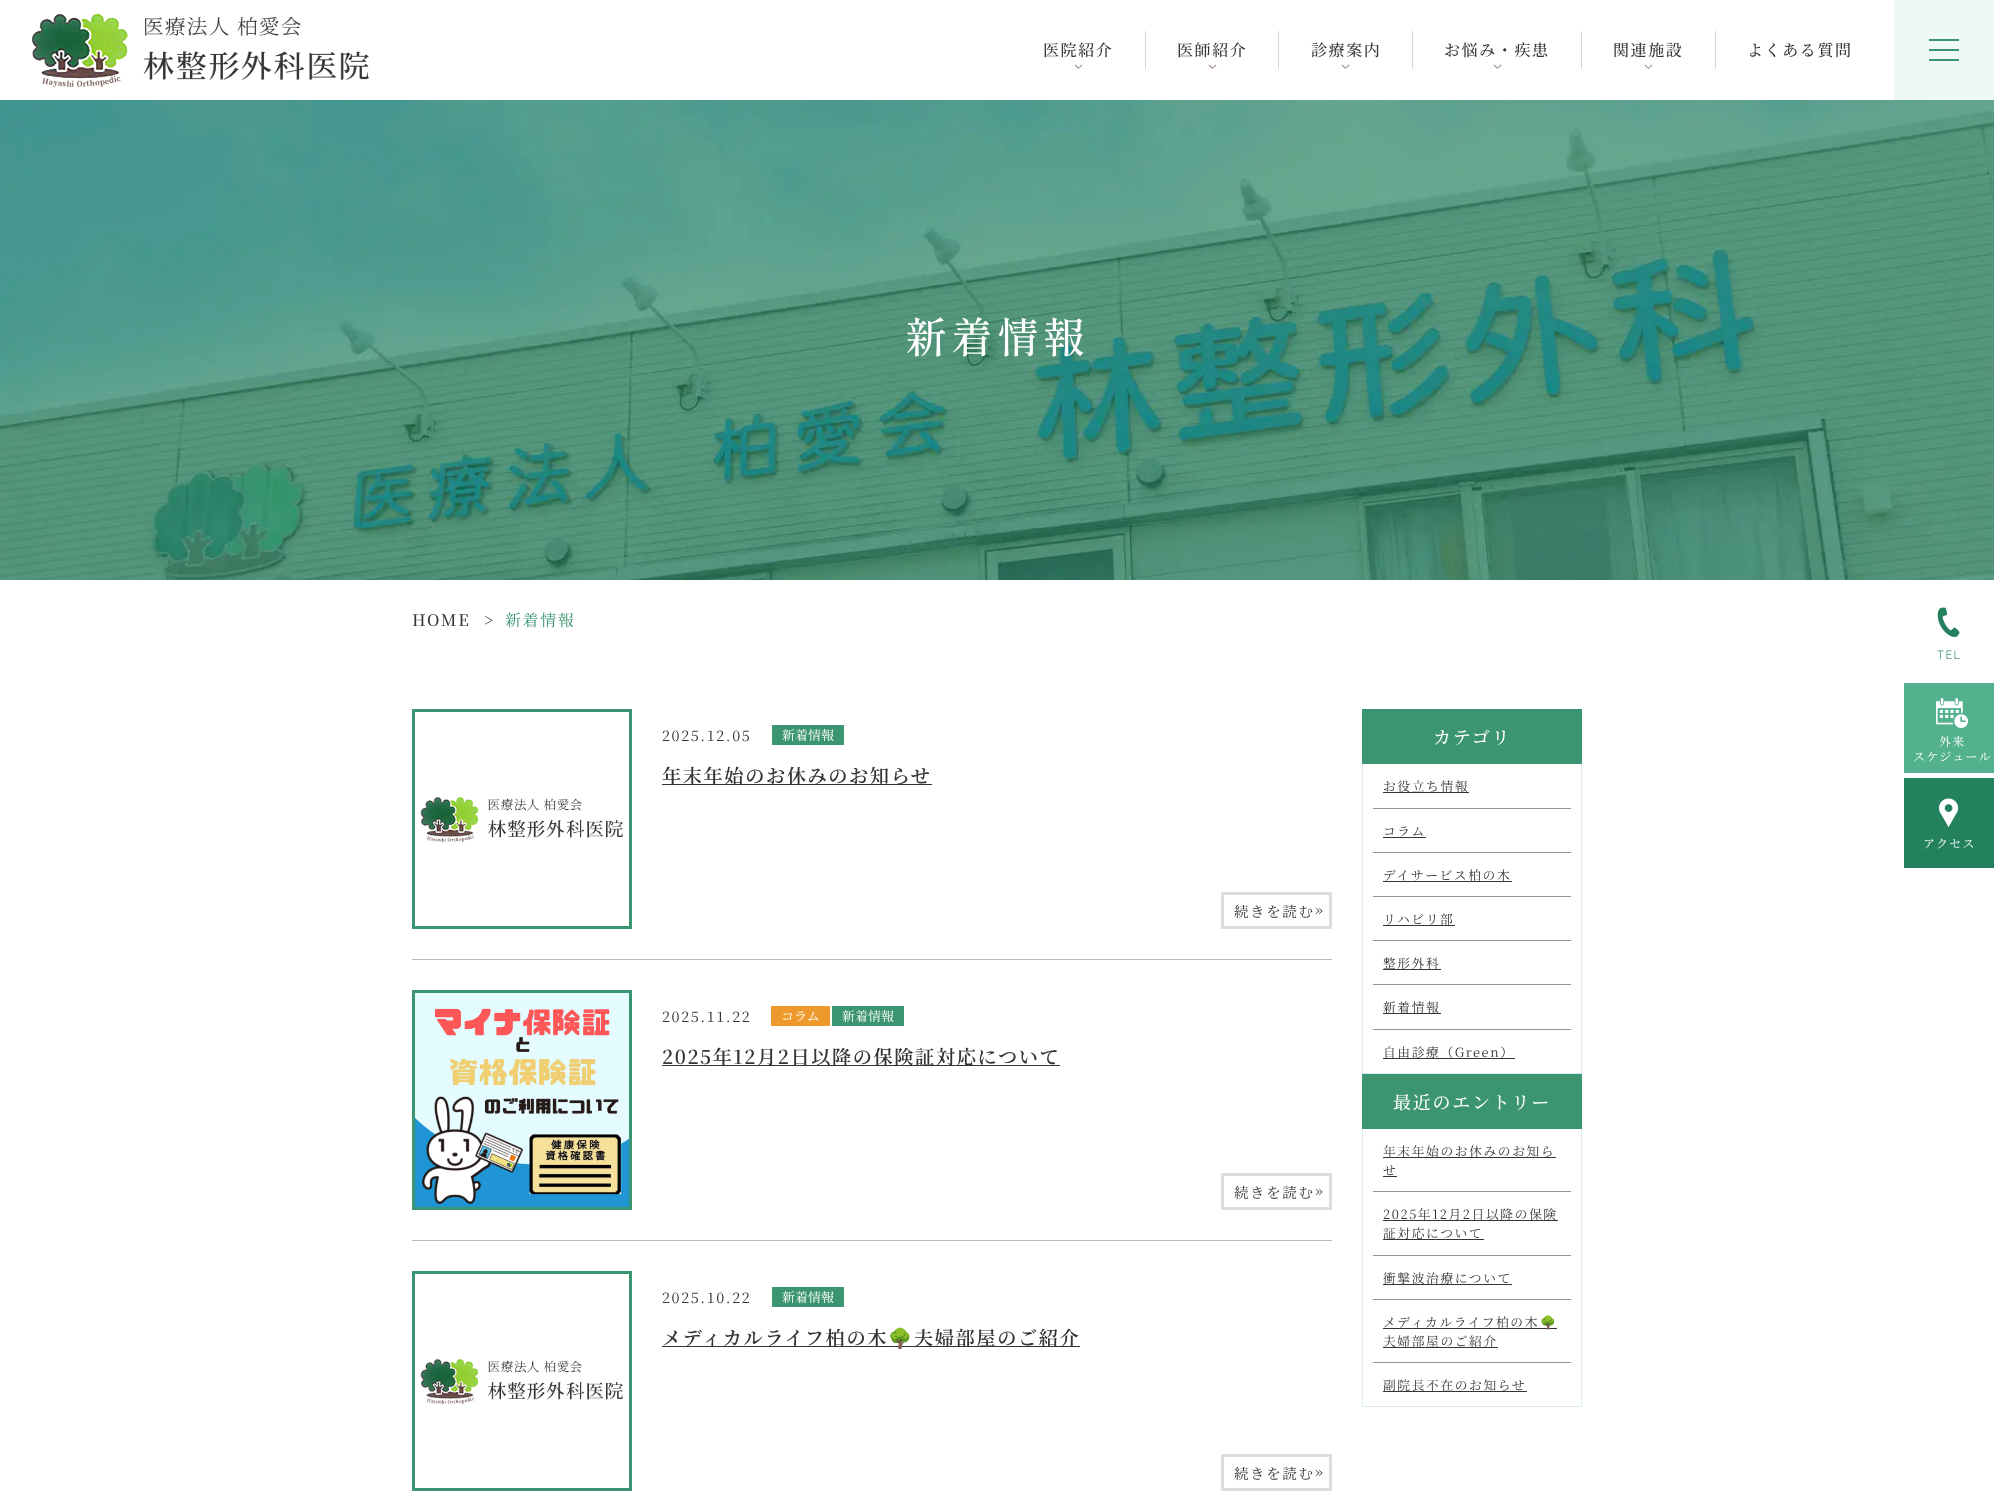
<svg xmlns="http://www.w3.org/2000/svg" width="1994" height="1505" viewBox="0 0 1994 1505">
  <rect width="100%" height="100%" fill="#ffffff"/>
  <image x="32" y="13" width="337" height="74" href="img1.png"/>
  <text x="1043" y="56" font-family="Noto Serif JP" font-size="16" font-weight="500" letter-spacing="1.6" fill="#343434">医院紹介</text>
  <image x="1074" y="64" width="9" height="5" href="img2.png"/>
  <rect x="1145" y="31" width="1" height="38" fill="#d7d7d7"/>
  <text x="1177" y="56" font-family="Noto Serif JP" font-size="16" font-weight="500" letter-spacing="1.6" fill="#343434">医師紹介</text>
  <image x="1208" y="64" width="9" height="5" href="img3.png"/>
  <rect x="1278" y="31" width="1" height="38" fill="#d7d7d7"/>
  <text x="1311" y="56" font-family="Noto Serif JP" font-size="16" font-weight="500" letter-spacing="1.6" fill="#343434">診療案内</text>
  <image x="1341" y="64" width="9" height="5" href="img3.png"/>
  <rect x="1412" y="31" width="1" height="38" fill="#d7d7d7"/>
  <text x="1444" y="56" font-family="Noto Serif JP" font-size="16" font-weight="500" letter-spacing="1.6" fill="#343434">お悩み・疾患</text>
  <image x="1493" y="64" width="9" height="5" href="img3.png"/>
  <rect x="1581" y="31" width="1" height="38" fill="#d7d7d7"/>
  <text x="1613" y="56" font-family="Noto Serif JP" font-size="16" font-weight="500" letter-spacing="1.6" fill="#343434">関連施設</text>
  <image x="1644" y="64" width="9" height="5" href="img2.png"/>
  <rect x="1715" y="31" width="1" height="38" fill="#d7d7d7"/>
  <text x="1747" y="56" font-family="Noto Serif JP" font-size="16" font-weight="500" letter-spacing="1.6" fill="#343434">よくある質問</text>
  <rect x="1894" y="0" width="100" height="100" fill="#eef9f5"/>
  <rect x="1929" y="39" width="30" height="2" fill="#3c9571"/>
  <rect x="1929" y="49" width="30" height="2" fill="#3c9571"/>
  <rect x="1929" y="59" width="30" height="2" fill="#3c9571"/>
  <image x="0" y="100" width="1994" height="480" href="img4.png"/>
  <text x="905" y="353" font-family="Shippori Mincho" font-size="42" font-weight="500" letter-spacing="4" fill="#ffffff">新着情報</text>
  <text x="412" y="626" font-family="Noto Serif JP" font-size="16" font-weight="500" letter-spacing="1.6" fill="#343434">HOME</text>
  <text x="484" y="626" font-family="Noto Serif JP" font-size="16" letter-spacing="-3" fill="#343434">&gt;</text>
  <text x="505" y="626" font-family="Noto Serif JP" font-size="16" letter-spacing="1.6" fill="#3c9571">新着情報</text>
  <rect x="412" y="959" width="920" height="1" fill="#bababa"/>
  <rect x="413.5" y="710.5" width="217" height="217" fill="none" stroke="#3c9571" stroke-width="3"/>
  <image x="420" y="796" width="203" height="47" href="img5.png"/>
  <text x="662" y="741" font-family="Noto Serif JP" font-size="14.5" letter-spacing="1.6" fill="#343434">2025.12.05</text>
  <rect x="772" y="725" width="72" height="20" fill="#3c9571"/>
  <text x="782" y="740" font-family="Noto Serif JP" font-size="13" fill="#ffffff">新着情報</text>
  <rect x="662" y="784" width="270" height="1" fill="#333333"/>
  <text x="662" y="783" font-family="Noto Serif JP" font-size="19.2" font-weight="600" letter-spacing="1.6" fill="#343434">年末年始のお休みのお知らせ</text>
  <rect x="1222.5" y="893.5" width="108" height="34" fill="none" stroke="#dddddd" stroke-width="3"/>
  <text x="1234" y="917" font-family="Noto Serif JP" font-size="14.5" letter-spacing="1.6" fill="#343434">続きを読む</text>
  <text x="1315" y="915" font-family="Noto Serif JP" font-size="14.5" letter-spacing="1.6" fill="#343434">»</text>
  <rect x="412" y="1240" width="920" height="1" fill="#bababa"/>
  <rect x="413.5" y="991.5" width="217" height="217" fill="none" stroke="#3c9571" stroke-width="3"/>
  <image x="415" y="993" width="214" height="214" href="img6.png"/>
  <text x="662" y="1022" font-family="Noto Serif JP" font-size="14.5" letter-spacing="1.6" fill="#343434">2025.11.22</text>
  <rect x="771" y="1006" width="59" height="20" fill="#ed992c"/>
  <text x="781" y="1021" font-family="Noto Serif JP" font-size="13" fill="#ffffff">コラム</text>
  <rect x="832" y="1006" width="72" height="20" fill="#3c9571"/>
  <text x="842" y="1021" font-family="Noto Serif JP" font-size="13" fill="#ffffff">新着情報</text>
  <rect x="662" y="1065" width="398" height="1" fill="#333333"/>
  <text x="662" y="1064" font-family="Noto Serif JP" font-size="19.2" font-weight="600" letter-spacing="1.6" fill="#343434">2025年12月2日以降の保険証対応について</text>
  <rect x="1222.5" y="1174.5" width="108" height="34" fill="none" stroke="#dddddd" stroke-width="3"/>
  <text x="1234" y="1198" font-family="Noto Serif JP" font-size="14.5" letter-spacing="1.6" fill="#343434">続きを読む</text>
  <text x="1315" y="1196" font-family="Noto Serif JP" font-size="14.5" letter-spacing="1.6" fill="#343434">»</text>
  <rect x="413.5" y="1272.5" width="217" height="217" fill="none" stroke="#3c9571" stroke-width="3"/>
  <image x="420" y="1358" width="203" height="47" href="img5.png"/>
  <text x="662" y="1303" font-family="Noto Serif JP" font-size="14.5" letter-spacing="1.6" fill="#343434">2025.10.22</text>
  <rect x="772" y="1287" width="72" height="20" fill="#3c9571"/>
  <text x="782" y="1302" font-family="Noto Serif JP" font-size="13" fill="#ffffff">新着情報</text>
  <rect x="662" y="1346" width="418" height="1" fill="#333333"/>
  <text x="662" y="1345" font-family="Noto Serif JP" font-size="19.2" font-weight="600" letter-spacing="1.6" fill="#343434">メディカルライフ柏の木</text>
  <text x="888" y="1345" font-family="Noto Color Emoji" font-size="19.2" font-weight="bold" letter-spacing="1.6" fill="#343434">🌳</text>
  <text x="914" y="1345" font-family="Noto Serif JP" font-size="19.2" font-weight="600" letter-spacing="1.6" fill="#343434">夫婦部屋のご紹介</text>
  <rect x="1222.5" y="1455.5" width="108" height="34" fill="none" stroke="#dddddd" stroke-width="3"/>
  <text x="1234" y="1479" font-family="Noto Serif JP" font-size="14.5" letter-spacing="1.6" fill="#343434">続きを読む</text>
  <text x="1315" y="1477" font-family="Noto Serif JP" font-size="14.5" letter-spacing="1.6" fill="#343434">»</text>
  <rect x="1362" y="709" width="220" height="55" fill="#3c9571"/>
  <text x="1433" y="744" font-family="Noto Serif JP" font-size="18" font-weight="500" letter-spacing="1.75" fill="#ffffff">カテゴリ</text>
  <rect x="1581" y="764" width="1" height="310" fill="#ddebf2"/>
  <rect x="1362" y="1073" width="220" height="1" fill="#ddebf2"/>
  <rect x="1362" y="764" width="1" height="310" fill="#ddebf2"/>
  <rect x="1373" y="808" width="198" height="1" fill="#959595"/>
  <rect x="1383" y="792" width="86" height="1" fill="#343434"/>
  <text x="1383" y="791" font-family="Noto Serif JP" font-size="12.75" letter-spacing="1.6" fill="#343434">お役立ち情報</text>
  <rect x="1373" y="852" width="198" height="1" fill="#959595"/>
  <text x="1383" y="836" font-family="Noto Serif JP" font-size="12.75" letter-spacing="1.6" fill="#343434">コラム</text>
  <rect x="1383" y="837" width="43" height="1" fill="#343434"/>
  <rect x="1373" y="896" width="198" height="1" fill="#959595"/>
  <text x="1383" y="880" font-family="Noto Serif JP" font-size="12.75" letter-spacing="1.6" fill="#343434">デイサービス柏の木</text>
  <rect x="1383" y="881" width="129" height="1" fill="#343434"/>
  <rect x="1373" y="940" width="198" height="1" fill="#959595"/>
  <text x="1383" y="924" font-family="Noto Serif JP" font-size="12.75" letter-spacing="1.6" fill="#343434">リハビリ部</text>
  <rect x="1383" y="925" width="72" height="1" fill="#343434"/>
  <rect x="1373" y="984" width="198" height="1" fill="#959595"/>
  <text x="1383" y="968" font-family="Noto Serif JP" font-size="12.75" letter-spacing="1.6" fill="#343434">整形外科</text>
  <rect x="1383" y="969" width="58" height="1" fill="#343434"/>
  <rect x="1373" y="1029" width="198" height="1" fill="#959595"/>
  <text x="1383" y="1012" font-family="Noto Serif JP" font-size="12.75" letter-spacing="1.6" fill="#343434">新着情報</text>
  <rect x="1383" y="1013" width="58" height="1" fill="#343434"/>
  <rect x="1383" y="1058" width="132" height="1" fill="#343434"/>
  <text x="1383" y="1057" font-family="Noto Serif JP" font-size="12.75" letter-spacing="1.6" fill="#343434">自由診療（Green）</text>
  <rect x="1362" y="1074" width="220" height="55" fill="#3c9571"/>
  <text x="1393" y="1109" font-family="Noto Serif JP" font-size="18" font-weight="500" letter-spacing="1.75" fill="#ffffff">最近のエントリー</text>
  <rect x="1581" y="1129" width="1" height="278" fill="#ddebf2"/>
  <rect x="1362" y="1406" width="220" height="1" fill="#ddebf2"/>
  <rect x="1362" y="1129" width="1" height="278" fill="#ddebf2"/>
  <rect x="1373" y="1191" width="198" height="1" fill="#959595"/>
  <text x="1383" y="1156" font-family="Noto Serif JP" font-size="12.75" letter-spacing="1.6" fill="#343434">年末年始のお休みのお知ら</text>
  <rect x="1383" y="1157" width="173" height="1" fill="#343434"/>
  <text x="1383" y="1175" font-family="Noto Serif JP" font-size="12.75" letter-spacing="1.6" fill="#343434">せ</text>
  <rect x="1383" y="1176" width="14" height="1" fill="#343434"/>
  <rect x="1373" y="1255" width="198" height="1" fill="#959595"/>
  <text x="1383" y="1219" font-family="Noto Serif JP" font-size="12.75" letter-spacing="1.6" fill="#343434">2025年12月2日以降の保険</text>
  <rect x="1383" y="1220" width="175" height="1" fill="#343434"/>
  <text x="1383" y="1238" font-family="Noto Serif JP" font-size="12.75" letter-spacing="1.6" fill="#343434">証対応について</text>
  <rect x="1383" y="1239" width="101" height="1" fill="#343434"/>
  <rect x="1373" y="1299" width="198" height="1" fill="#959595"/>
  <text x="1383" y="1283" font-family="Noto Serif JP" font-size="12.75" letter-spacing="1.6" fill="#343434">衝撃波治療について</text>
  <rect x="1383" y="1284" width="129" height="1" fill="#343434"/>
  <rect x="1373" y="1362" width="198" height="1" fill="#959595"/>
  <text x="1383" y="1327" font-family="Noto Serif JP" font-size="12.75" letter-spacing="1.6" fill="#343434">メディカルライフ柏の木</text>
  <rect x="1383" y="1328" width="174" height="1" fill="#343434"/>
  <text x="1540" y="1327" font-family="Noto Color Emoji" font-size="12.75" letter-spacing="1.6" fill="#343434">🌳</text>
  <text x="1383" y="1346" font-family="Noto Serif JP" font-size="12.75" letter-spacing="1.6" fill="#343434">夫婦部屋のご紹介</text>
  <rect x="1383" y="1347" width="115" height="1" fill="#343434"/>
  <text x="1383" y="1390" font-family="Noto Serif JP" font-size="12.75" letter-spacing="1.6" fill="#343434">副院長不在のお知らせ</text>
  <rect x="1383" y="1391" width="144" height="1" fill="#343434"/>
  <image x="1937" y="607" width="23" height="30" href="img7.png"/>
  <text x="1937" y="659" font-family="Zen Maru Gothic" font-size="12" letter-spacing="1.25" fill="#3c9571">TEL</text>
  <rect x="1904" y="683" width="90" height="90" fill="#53b18e"/>
  <image x="1936" y="698" width="32" height="30" href="img8.png"/>
  <text x="1939" y="746" font-family="Noto Serif JP" font-size="12" letter-spacing="1.25" fill="#ffffff">外来</text>
  <text x="1913" y="761" font-family="Noto Serif JP" font-size="12" letter-spacing="1.25" fill="#ffffff">スケジュール</text>
  <rect x="1904" y="778" width="90" height="90" fill="#23815e"/>
  <image x="1939" y="798" width="20" height="29" href="img9.png"/>
  <text x="1923" y="848" font-family="Noto Serif JP" font-size="12" letter-spacing="1.25" fill="#ffffff">アクセス</text>
</svg>
